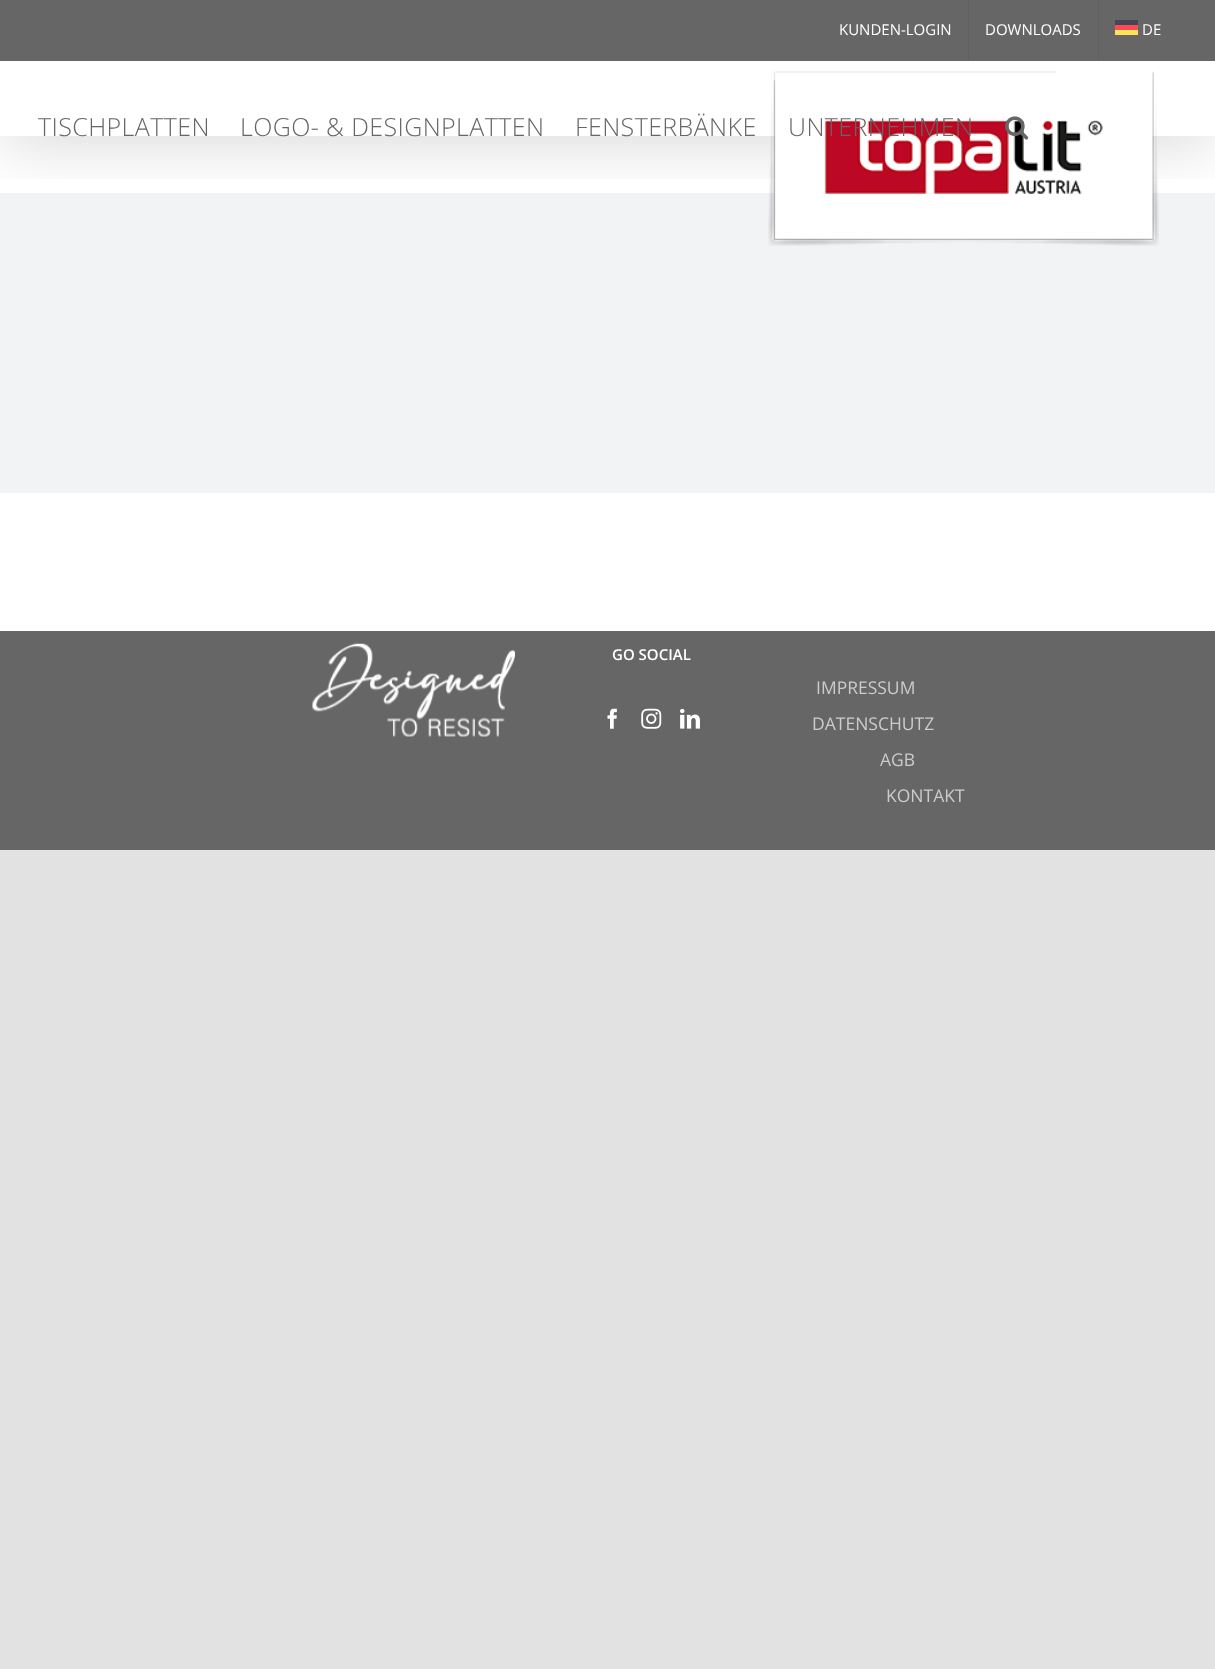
<svg xmlns="http://www.w3.org/2000/svg" width="1215" height="1669" viewBox="0 0 1215 1669">
  <defs>
    <clipPath id="clip1"><rect x="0" y="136" width="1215" height="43"/></clipPath>
    <filter id="blur1" x="-50%" y="-200%" width="200%" height="500%"><feGaussianBlur stdDeviation="31"/></filter>
  </defs>
  <rect width="100%" height="100%" fill="#e2e2e2"/>
  <rect x="0" y="61" width="1215" height="570" fill="#ffffff"/>
  <rect x="0" y="193" width="1215" height="300" fill="#f2f3f5"/>
  <g clip-path="url(#clip1)">
    <rect x="3" y="15" width="1210" height="131" fill="#000000" fill-opacity="0.14" filter="url(#blur1)"/>
  </g>
  <rect x="0" y="0" width="1215" height="61" fill="#666666"/>
  <text x="839" y="35" font-family="Open Sans" font-size="15" fill="#ffffff">KUNDEN-LOGIN</text>
  <rect x="968" y="0" width="1" height="60" fill="#606060"/>
  <text x="985" y="35" font-family="Open Sans" font-size="15" fill="#ffffff">DOWNLOADS</text>
  <rect x="1098" y="0" width="1" height="60" fill="#606060"/>
  <rect x="1115" y="20" width="23" height="5" fill="#464655"/>
  <rect x="1115" y="25" width="23" height="5" fill="#ff4b55"/>
  <text x="1142" y="35" font-family="Open Sans" font-size="15" fill="#ffffff">DE</text>
  <rect x="1115" y="30" width="23" height="5" fill="#ffe15a"/>
  <image x="768" y="71" width="391" height="175" href="img1.png"/>
  <text x="38" y="136" font-family="Open Sans" font-size="25" font-weight="300" letter-spacing="0.4" fill="#666666">TISCHPLATTEN</text>
  <text x="240" y="136" font-family="Open Sans" font-size="25" font-weight="300" letter-spacing="0.4" fill="#666666">LOGO- &amp; DESIGNPLATTEN</text>
  <text x="575" y="136" font-family="Open Sans" font-size="25" font-weight="300" letter-spacing="0.4" fill="#666666">FENSTERBÄNKE</text>
  <text x="788" y="136" font-family="Open Sans" font-size="25" font-weight="300" letter-spacing="0.4" fill="#666666">UNTERNEHMEN</text>
  <image x="1005" y="116" width="24" height="24" href="img2.png"/>
  <rect x="0" y="631" width="1215" height="219" fill="#666666"/>
  <image x="312" y="643" width="203" height="94" href="img3.png"/>
  <text x="612" y="660" font-family="Open Sans" font-size="15" font-weight="600" fill="#ffffff">GO SOCIAL</text>
  <image x="607" y="708" width="10" height="21" href="img4.png"/>
  <image x="641" y="708" width="21" height="21" href="img5.png"/>
  <image x="680" y="708" width="20" height="21" href="img6.png"/>
  <text x="816" y="694" font-family="Open Sans" font-size="17.5" fill="#cccccc">IMPRESSUM</text>
  <text x="812" y="730" font-family="Open Sans" font-size="17.5" fill="#cccccc">DATENSCHUTZ</text>
  <text x="880" y="766" font-family="Open Sans" font-size="17.5" fill="#cccccc">AGB</text>
  <text x="886" y="802" font-family="Open Sans" font-size="17.5" fill="#cccccc">KONTAKT</text>
</svg>
